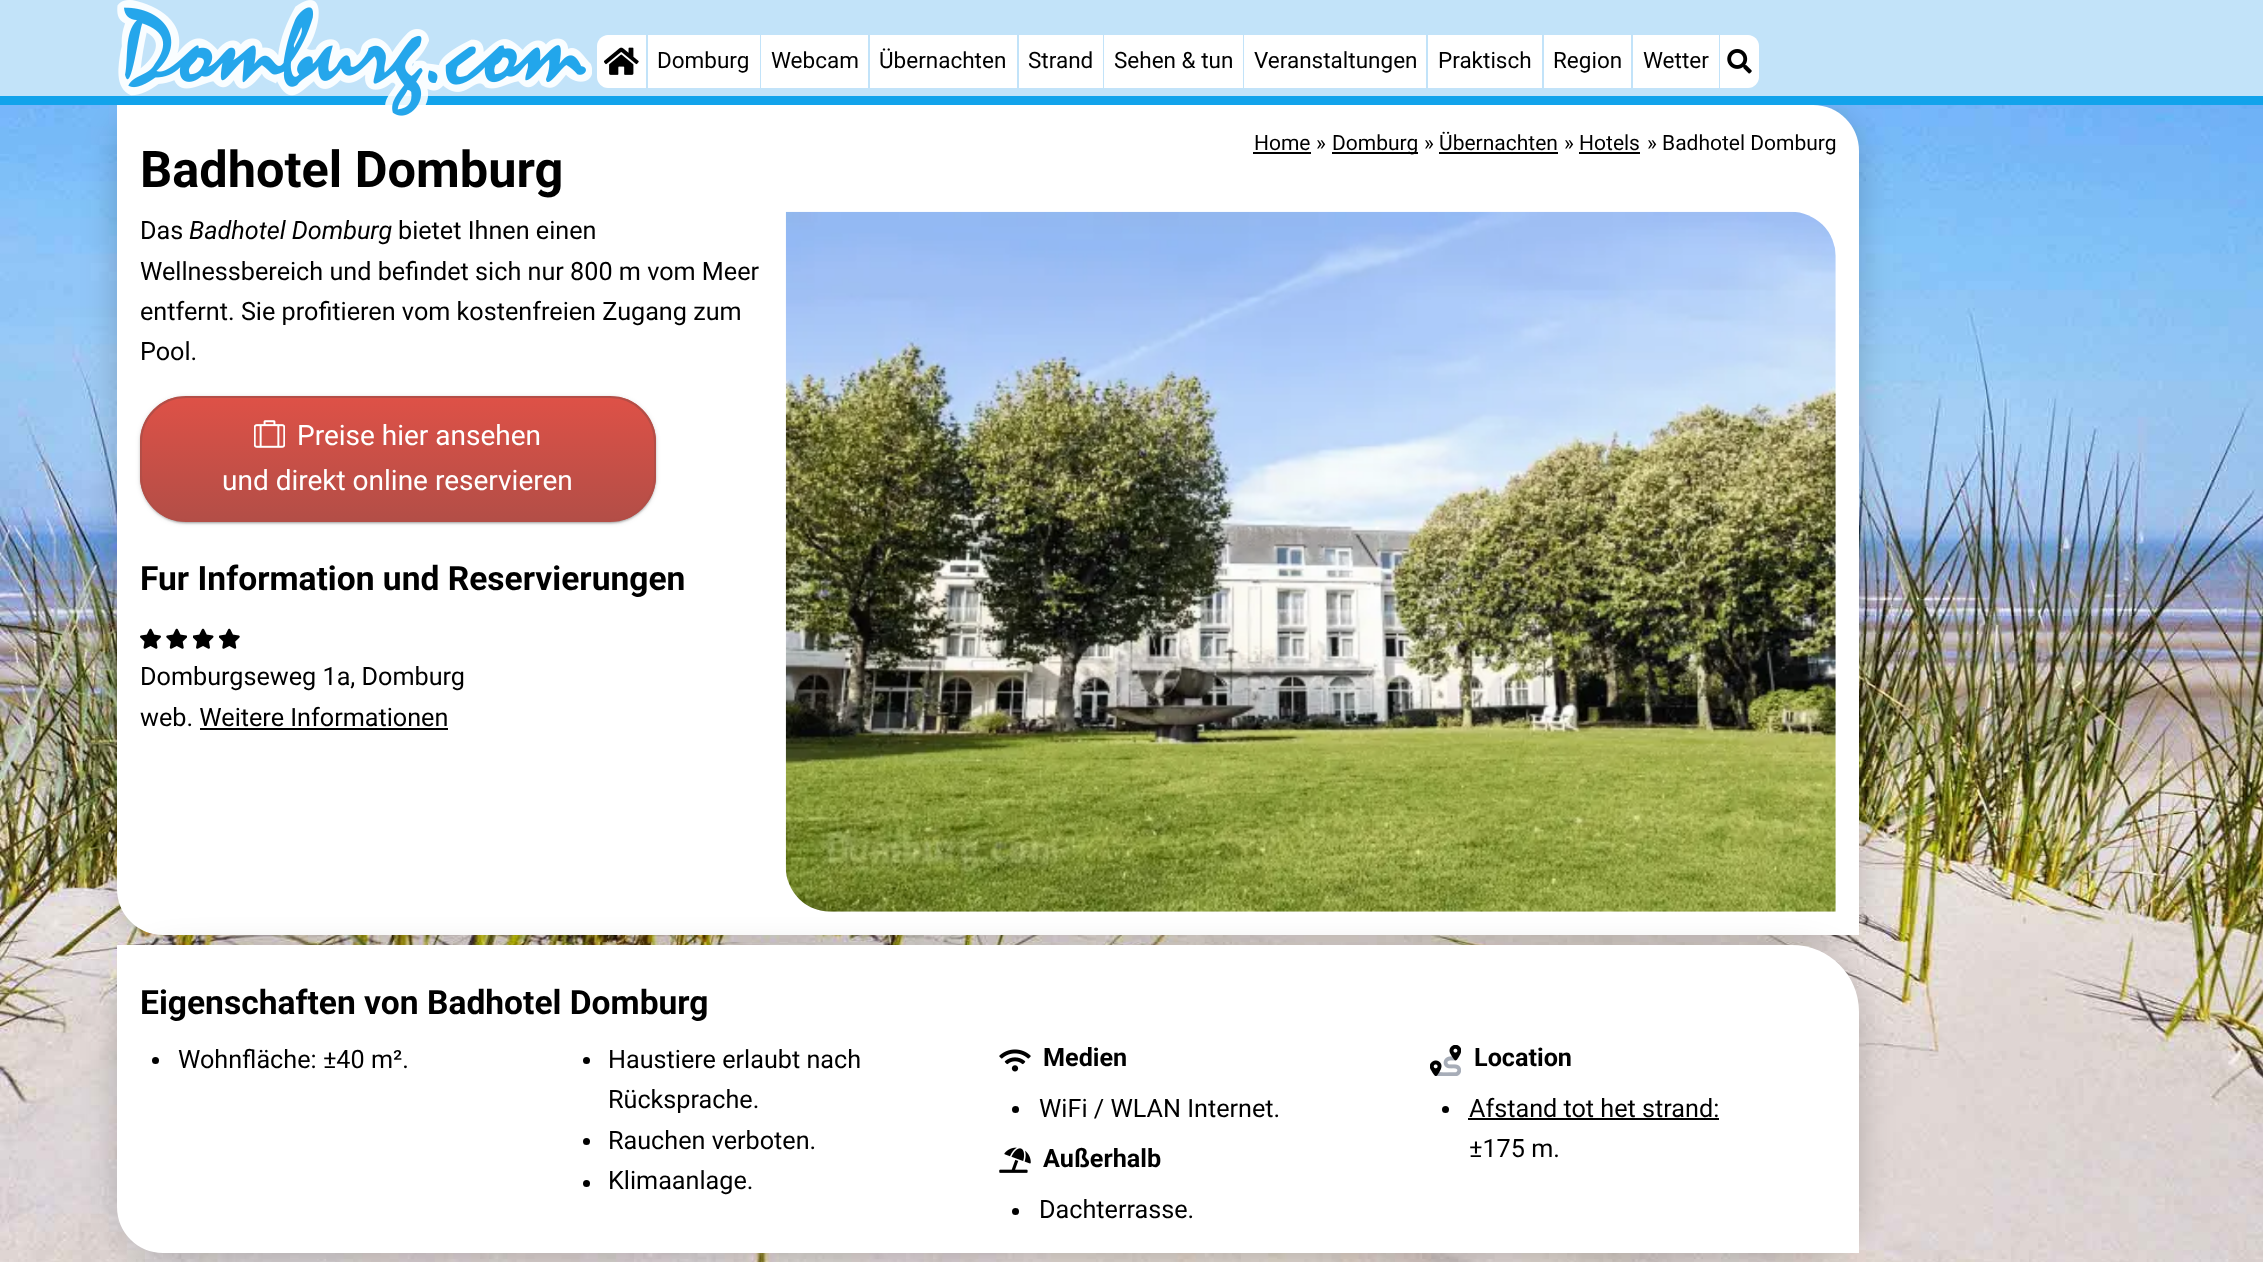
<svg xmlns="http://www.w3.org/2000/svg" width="2263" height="1262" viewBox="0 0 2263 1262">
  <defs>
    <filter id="blur1" x="-50%" y="-200%" width="200%" height="500%"><feGaussianBlur stdDeviation="17.5"/></filter>
    <filter id="blur2" x="-50%" y="-200%" width="200%" height="500%"><feGaussianBlur stdDeviation="2.5"/></filter>
    <filter id="blur3" x="-50%" y="-200%" width="200%" height="500%"><feGaussianBlur stdDeviation="1"/></filter>
    <clipPath id="clip1"><rect x="140" y="396" width="516" height="126" rx="46"/></clipPath>
    <linearGradient id="g1" gradientUnits="userSpaceOnUse" x1="398" y1="397" x2="398" y2="520"><stop offset="0" stop-color="#de5147"/><stop offset="1" stop-color="#b34e47"/></linearGradient>
  </defs>
  <rect width="100%" height="100%" fill="#ffffff"/>
  <image x="0" y="105" width="2263" height="1157" href="img4.png"/>
  <rect x="117" y="114" width="1742" height="829" rx="46" fill="#000000" fill-opacity="0.2" filter="url(#blur1)"/>
  <rect x="0" y="0" width="2263" height="96" fill="#c2e3f9"/>
  <rect x="0" y="96" width="2263" height="9" fill="#12a3eb"/>
  <path d="M117 105H1813C1838.5 105 1859 125.5 1859 151V935H163C137.5 935 117 914.5 117 889Z" fill="#ffffff"/>
  <image x="117" y="0" width="475" height="116" href="img1.png"/>
  <path d="M608 35H646V88H608C602 88 597 83 597 77V46C597 40 602 35 608 35Z" fill="#ffffff"/>
  <image x="604" y="47" width="35" height="28" href="img2.png"/>
  <rect x="648" y="35" width="112" height="53" fill="#ffffff"/>
  <text x="657" y="68" font-family="Roboto" font-size="22.5" fill="#000000">Domburg</text>
  <rect x="761" y="35" width="107" height="53" fill="#ffffff"/>
  <text x="771" y="68" font-family="Roboto" font-size="22.5" fill="#000000">Webcam</text>
  <rect x="870" y="35" width="147" height="53" fill="#ffffff"/>
  <text x="879" y="68" font-family="Roboto" font-size="22.5" fill="#000000">Übernachten</text>
  <rect x="1019" y="35" width="84" height="53" fill="#ffffff"/>
  <text x="1028" y="68" font-family="Roboto" font-size="22.5" fill="#000000">Strand</text>
  <rect x="1104" y="35" width="139" height="53" fill="#ffffff"/>
  <text x="1114" y="68" font-family="Roboto" font-size="22.5" fill="#000000">Sehen &amp; tun</text>
  <rect x="1244" y="35" width="182" height="53" fill="#ffffff"/>
  <text x="1254" y="68" font-family="Roboto" font-size="22.5" fill="#000000">Veranstaltungen</text>
  <rect x="1428" y="35" width="114" height="53" fill="#ffffff"/>
  <text x="1438" y="68" font-family="Roboto" font-size="22.5" fill="#000000">Praktisch</text>
  <rect x="1544" y="35" width="87" height="53" fill="#ffffff"/>
  <text x="1553" y="68" font-family="Roboto" font-size="22.5" fill="#000000">Region</text>
  <rect x="1633" y="35" width="86" height="53" fill="#ffffff"/>
  <text x="1643" y="68" font-family="Roboto" font-size="22.5" fill="#000000">Wetter</text>
  <path d="M1720 35H1748C1754 35 1759 40 1759 46V77C1759 83 1754 88 1748 88H1720Z" fill="#ffffff"/>
  <image x="1727" y="49" width="25" height="25" href="img3.png"/>
  <text x="1254" y="150" font-family="Roboto" font-size="21" fill="#000000">Home</text>
  <rect x="1253" y="152" width="58" height="2" fill="#000000"/>
  <text x="1316" y="150" font-family="Roboto" font-size="21" fill="#000000">»</text>
  <rect x="1332" y="152" width="86" height="2" fill="#000000"/>
  <text x="1332" y="150" font-family="Roboto" font-size="21" fill="#000000">Domburg</text>
  <text x="1424" y="150" font-family="Roboto" font-size="21" fill="#000000">» Übernachten</text>
  <rect x="1439" y="152" width="119" height="2" fill="#000000"/>
  <text x="1564" y="150" font-family="Roboto" font-size="21" fill="#000000">» Hotels</text>
  <rect x="1579" y="152" width="61" height="2" fill="#000000"/>
  <text x="1647" y="150" font-family="Roboto" font-size="21" fill="#000000">» Badhotel Domburg</text>
  <text x="140" y="187" font-family="Roboto" font-size="50.5" font-weight="bold" fill="#000000">Badhotel Domburg</text>
  <text x="140" y="239" font-family="Roboto" font-size="25.2" fill="#000000">Das</text>
  <text x="189" y="239" font-family="Roboto" font-size="25.2" font-style="italic" fill="#000000">Badhotel Domburg</text>
  <text x="398" y="239" font-family="Roboto" font-size="25.2" fill="#000000">bietet Ihnen einen</text>
  <text x="140" y="280" font-family="Roboto" font-size="25.2" fill="#000000">Wellnessbereich und befindet sich nur 800 m vom Meer</text>
  <text x="140" y="320" font-family="Roboto" font-size="25.2" fill="#000000">entfernt. Sie profitieren vom kostenfreien Zugang zum</text>
  <text x="140" y="360" font-family="Roboto" font-size="25.2" fill="#000000">Pool.</text>
  <image x="785" y="211" width="1051" height="701" href="img5.png"/>
  <rect x="140" y="397" width="516" height="126" rx="46" fill="#000000" fill-opacity="0.12" filter="url(#blur2)"/>
  <rect x="140" y="397" width="516" height="126" rx="46" fill="#000000" fill-opacity="0.14" filter="url(#blur3)"/>
  <rect x="142" y="401" width="513" height="122" rx="44" fill="#000000" fill-opacity="0.2" filter="url(#blur3)"/>
  <g clip-path="url(#clip1)">
    <rect x="140" y="397" width="516" height="123" fill="url(#g1)"/>
  </g>
  <rect x="141" y="397" width="514" height="124" rx="45" fill="none" stroke="#b34e47" stroke-width="2"/>
  <image x="254" y="420" width="31" height="28" href="img6.png"/>
  <text x="297" y="445" font-family="Roboto" font-size="28" fill="#ffffff">Preise hier ansehen</text>
  <text x="222" y="490" font-family="Roboto" font-size="28" fill="#ffffff">und direkt online reservieren</text>
  <text x="140" y="590" font-family="Roboto" font-size="33.6" font-weight="bold" fill="#000000">Fur Information und Reservierungen</text>
  <image x="140" y="628" width="21" height="21" href="img7.png"/>
  <image x="166" y="628" width="21" height="21" href="img8.png"/>
  <image x="193" y="628" width="21" height="21" href="img9.png"/>
  <image x="219" y="628" width="21" height="21" href="img10.png"/>
  <text x="140" y="685" font-family="Roboto" font-size="25.2" fill="#000000">Domburgseweg 1a, Domburg</text>
  <text x="140" y="726" font-family="Roboto" font-size="25.2" fill="#000000">web. Weitere Informationen</text>
  <rect x="200" y="728" width="248" height="2" fill="#000000"/>
  <rect x="117" y="954" width="1742" height="308" rx="67" fill="#000000" fill-opacity="0.2" filter="url(#blur1)"/>
  <path d="M117 945H1792C1829 945 1859 975 1859 1012V1253H163C137.5 1253 117 1232.5 117 1207Z" fill="#ffffff"/>
  <text x="140" y="1014" font-family="Roboto" font-size="33.6" font-weight="bold" fill="#000000">Eigenschaften von Badhotel Domburg</text>
  <circle cx="155.5" cy="1060.5" r="3.5" fill="#000000"/>
  <text x="178" y="1068" font-family="Roboto" font-size="25.2" fill="#000000">Wohnfläche: ±40 m².</text>
  <circle cx="586.5" cy="1060.5" r="3.5" fill="#000000"/>
  <text x="608" y="1068" font-family="Roboto" font-size="25.2" fill="#000000">Haustiere erlaubt nach</text>
  <text x="608" y="1108" font-family="Roboto" font-size="25.2" fill="#000000">Rücksprache.</text>
  <circle cx="586.5" cy="1141.5" r="3.5" fill="#000000"/>
  <text x="608" y="1149" font-family="Roboto" font-size="25.2" fill="#000000">Rauchen verboten.</text>
  <circle cx="586.5" cy="1183.5" r="3.5" fill="#000000"/>
  <text x="608" y="1189" font-family="Roboto" font-size="25.2" fill="#000000">Klimaanlage.</text>
  <image x="999" y="1049" width="32" height="23" href="img11.png"/>
  <text x="1043" y="1066" font-family="Roboto" font-size="25.2" font-weight="bold" fill="#000000">Medien</text>
  <circle cx="1015.5" cy="1109.5" r="3.5" fill="#000000"/>
  <text x="1039" y="1117" font-family="Roboto" font-size="25.2" fill="#000000">WiFi / WLAN Internet.</text>
  <image x="1430" y="1045" width="31" height="31" href="img12.png"/>
  <text x="1474" y="1066" font-family="Roboto" font-size="25.2" font-weight="bold" fill="#000000">Location</text>
  <circle cx="1445.5" cy="1109.5" r="3.5" fill="#000000"/>
  <text x="1469" y="1117" font-family="Roboto" font-size="25.2" fill="#000000">Afstand tot het strand:</text>
  <rect x="1468" y="1118" width="251" height="2" fill="#000000"/>
  <text x="1469" y="1157" font-family="Roboto" font-size="25.2" fill="#000000">±175 m.</text>
  <image x="999" y="1147" width="32" height="26" href="img13.png"/>
  <text x="1043" y="1167" font-family="Roboto" font-size="25.2" font-weight="bold" fill="#000000">Außerhalb</text>
  <circle cx="1015.5" cy="1211.5" r="3.5" fill="#000000"/>
  <text x="1039" y="1218" font-family="Roboto" font-size="25.2" fill="#000000">Dachterrasse.</text>
</svg>
